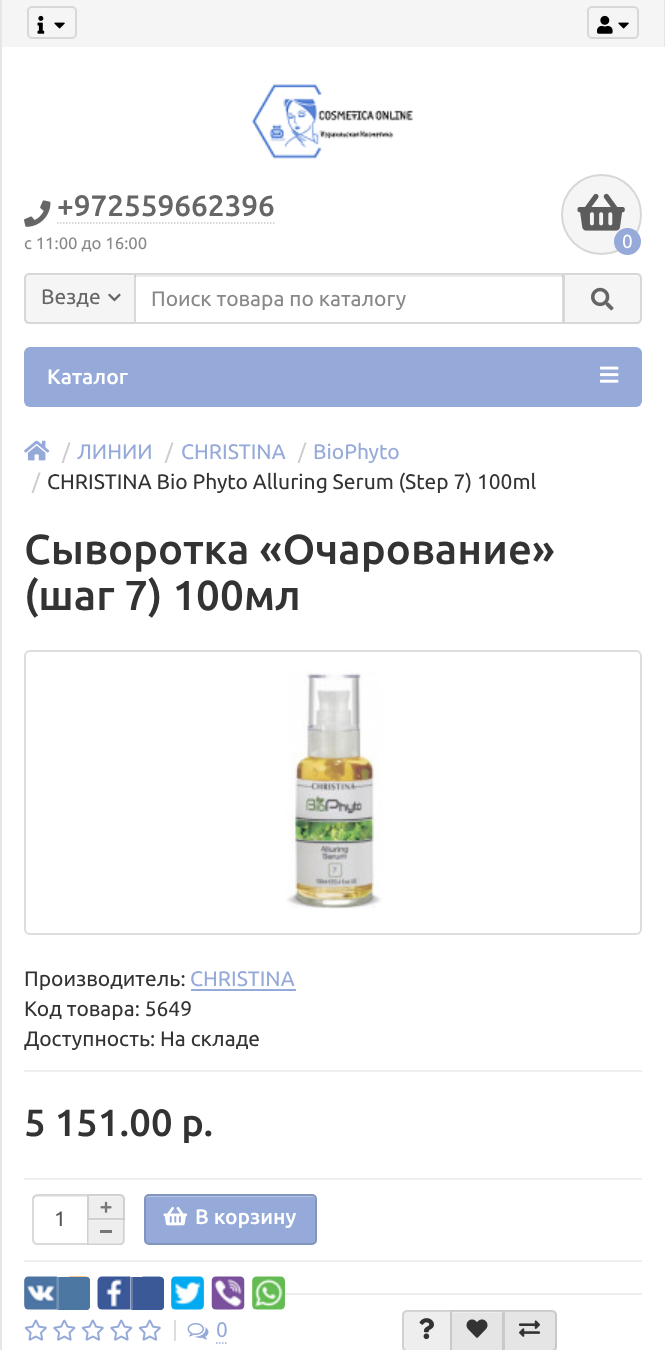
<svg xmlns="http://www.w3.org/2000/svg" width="665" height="1350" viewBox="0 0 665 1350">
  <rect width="100%" height="100%" fill="#ffffff"/>
  <rect x="0" y="0" width="664" height="47" fill="#f5f5f5"/>
  <path d="M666-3V50L664 48V-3Z" fill="#e6e6e6"/>
  <path d="M0 50V-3H2V48Z" fill="#000000" fill-opacity="0.06"/>
  <rect x="28" y="7" width="48" height="31" rx="4" fill="none" stroke="#d8d8d8" stroke-width="2"/>
  <image x="37" y="15" width="8" height="19" href="img1.png"/>
  <image x="54" y="22" width="11" height="7" href="img2.png"/>
  <rect x="588" y="7" width="50" height="31" rx="4" fill="none" stroke="#d8d8d8" stroke-width="2"/>
  <image x="597" y="15" width="16" height="19" href="img3.png"/>
  <image x="618" y="22" width="11" height="7" href="img2.png"/>
  <rect x="664" y="47" width="1" height="2" fill="#ffffff"/>
  <rect x="0" y="47" width="2" height="390" fill="#e6e6e6"/>
  <image x="251" y="84" width="162" height="75" href="img4.png"/>
  <image x="24" y="200" width="27" height="27" href="img5.png"/>
  <text x="57" y="216" font-family="Ubuntu" font-size="29.5" font-weight="500" fill="#666666">+972559662396</text>
  <path d="M57 223H274.5" fill="none" stroke="#cccccc" stroke-width="1.5" stroke-dasharray="1.5 1.5"/>
  <text x="24" y="249" font-family="Ubuntu" font-size="16.75" fill="#888888">с 11:00 до 16:00</text>
  <circle cx="601.5" cy="214.5" r="40.5" fill="#f5f5f5"/>
  <circle cx="601.5" cy="214.5" r="39.5" fill="none" stroke="#000000" stroke-opacity="0.12" stroke-width="2"/>
  <image x="577" y="193" width="48" height="38" href="img6.png"/>
  <circle cx="627.5" cy="241.5" r="13.5" fill="#95aad9"/>
  <text x="622" y="248" font-family="Ubuntu" font-size="19" fill="#ffffff">0</text>
  <path d="M29 273H137V324H29C26 324 24 322 24 319V278C24 275 26 273 29 273Z" fill="#f5f5f5"/>
  <path d="M28 276H135V275H29C27 275 26 276 26 278V279C26 277 27 276 28 276Z" fill="#f8f8f8"/>
  <path d="M29 274H136V323H29C27 323 25 321 25 319V278C25 276 27 274 29 274Z" fill="none" stroke="#000000" stroke-opacity="0.12" stroke-width="2"/>
  <text x="41" y="304" font-family="Ubuntu" font-size="21" fill="#666666">Везде</text>
  <image x="108" y="293" width="13" height="9" href="img7.png"/>
  <rect x="134" y="273" width="3" height="51" fill="#ffffff"/>
  <rect x="135" y="275" width="428" height="2" fill="#ececec"/>
  <rect x="135" y="274" width="428" height="49" fill="none" stroke="#000000" stroke-opacity="0.15" stroke-width="2"/>
  <text x="151" y="306" font-family="Ubuntu" font-size="21" fill="#888888">Поиск товара по каталогу</text>
  <path d="M563 273H637C640 273 642 275 642 278V319C642 322 640 324 637 324H563Z" fill="#f5f5f5"/>
  <path d="M564 276H626C644 276 640 274 640 293V322C641 322 641 321 641 320V278C641 276 640 275 638 275H564Z" fill="#f8f8f8"/>
  <path d="M564 274H637C639 274 641 276 641 278V319C641 321 639 323 637 323H564Z" fill="none" stroke="#000000" stroke-opacity="0.12" stroke-width="2"/>
  <image x="591" y="287" width="23" height="24" href="img8.png"/>
  <rect x="24" y="347" width="618" height="60" rx="6" fill="#95aad9"/>
  <text x="47" y="384" font-family="Ubuntu" font-size="21" font-weight="500" fill="#ffffff">Каталог</text>
  <image x="600" y="366" width="19" height="17" href="img9.png"/>
  <rect x="0" y="437" width="2" height="913" fill="#e6e6e6"/>
  <image x="24" y="440" width="26" height="21" href="img10.png"/>
  <text x="62" y="459" font-family="Ubuntu" font-size="21" fill="#cccccc">/</text>
  <text x="77" y="459" font-family="Ubuntu" font-size="21" fill="#95aad9">ЛИНИИ</text>
  <text x="165" y="459" font-family="Ubuntu" font-size="21" fill="#cccccc">/</text>
  <text x="181" y="459" font-family="Ubuntu" font-size="21" fill="#95aad9">CHRISTINA</text>
  <text x="298" y="459" font-family="Ubuntu" font-size="21" fill="#cccccc">/</text>
  <text x="313" y="459" font-family="Ubuntu" font-size="21" fill="#95aad9">BioPhyto</text>
  <text x="32" y="489" font-family="Ubuntu" font-size="21" fill="#cccccc">/</text>
  <text x="47" y="489" font-family="Ubuntu" font-size="21" fill="#333333">CHRISTINA Bio Phyto Alluring Serum (Step 7) 100ml</text>
  <text x="24" y="564" font-family="Ubuntu" font-size="42" font-weight="500" fill="#333333">Сыворотка «Очарование»</text>
  <text x="24" y="610" font-family="Ubuntu" font-size="42" font-weight="500" fill="#333333">(шаг 7) 100мл</text>
  <rect x="25" y="651" width="616" height="283" rx="5" fill="none" stroke="#dddddd" stroke-width="2"/>
  <image x="286" y="671" width="96" height="238" href="img11.png"/>
  <text x="24" y="986" font-family="Ubuntu" font-size="21" fill="#333333">Производитель:</text>
  <text x="190" y="986" font-family="Ubuntu" font-size="21" fill="#95aad9">CHRISTINA</text>
  <rect x="191" y="989" width="105" height="2" fill="#95aad9"/>
  <text x="24" y="1016" font-family="Ubuntu" font-size="21" fill="#333333">Код товара: 5649</text>
  <text x="24" y="1046" font-family="Ubuntu" font-size="21" fill="#333333">Доступность: На складе</text>
  <rect x="24" y="1070" width="618" height="2" fill="#eeeeee"/>
  <text x="24" y="1136" font-family="Ubuntu" font-size="38" font-weight="500" fill="#333333">5 151.00 р.</text>
  <rect x="24" y="1178" width="618" height="2" fill="#eeeeee"/>
  <path d="M36 1197H87V1196H36C34 1196 33 1197 33 1199L34 1198Z" fill="#ececec"/>
  <path d="M37 1195H88V1244H37C35 1244 33 1242 33 1240V1199C33 1197 35 1195 37 1195Z" fill="none" stroke="#000000" stroke-opacity="0.15" stroke-width="2"/>
  <text x="54" y="1226" font-family="Ubuntu" font-size="21" fill="#555555">1</text>
  <path d="M87 1194H120C123 1194 125 1196 125 1199V1220H87Z" fill="#eeeeee"/>
  <path d="M89 1196V1197H120C122 1197 123 1198 123 1200C123 1198 122.5 1196 120 1196Z" fill="#f3f3f3"/>
  <path d="M88 1195H120C122 1195 124 1197 124 1199V1219H88Z" fill="none" stroke="#000000" stroke-opacity="0.12" stroke-width="2"/>
  <image x="100" y="1201" width="12" height="12" href="img12.png"/>
  <path d="M87 1220H125V1240C125 1243 123 1245 120 1245H87Z" fill="#eeeeee"/>
  <rect x="89" y="1220" width="34" height="1" fill="#f3f3f3"/>
  <path d="M87 1219.5H124.5V1240.5C124.5 1243 122.5 1245 120 1245H87ZM88.5 1219.5H123V1240.5C123 1242 121.5 1243.5 120 1243.5H88.5Z" fill="#000000" fill-opacity="0.12" fill-rule="evenodd"/>
  <rect x="100" y="1230" width="12" height="3" fill="#777777"/>
  <rect x="144" y="1194" width="173" height="51" rx="5" fill="#95aad9"/>
  <path d="M148 1197H312C314 1197 315 1198 315 1200V1199C315 1197 314 1196 312 1196H149C147 1196 146 1197 146 1199V1200C146 1198 147 1197 148 1197Z" fill="#b5c4e4"/>
  <rect x="145" y="1195" width="171" height="49" rx="4" fill="none" stroke="#000000" stroke-opacity="0.12" stroke-width="2"/>
  <image x="163" y="1206" width="25" height="20" href="img13.png"/>
  <text x="195" y="1224" font-family="Ubuntu" font-size="21" font-weight="500" fill="#ffffff">В корзину</text>
  <rect x="24" y="1260" width="618" height="2" fill="#eeeeee"/>
  <image x="24" y="1276" width="66" height="34" href="img14.png"/>
  <path d="M57 1277H87C88.5 1277 90 1278.5 90 1280V1307C90 1308.5 88.5 1310 87 1310H57Z" fill="#4c77a2"/>
  <rect x="57" y="1277" width="2" height="33" fill="#7092b5"/>
  <image x="97" y="1276" width="67" height="34" href="img15.png"/>
  <path d="M131 1277H161C162.5 1277 164 1278.5 164 1280V1307C164 1308.5 162.5 1310 161 1310H131Z" fill="#3b5997"/>
  <rect x="131" y="1277" width="2" height="33" fill="#627aac"/>
  <image x="171" y="1276" width="33" height="34" href="img16.png"/>
  <image x="211" y="1276" width="34" height="34" href="img17.png"/>
  <image x="252" y="1276" width="33" height="34" href="img18.png"/>
  <rect x="285" y="1293" width="357" height="2" fill="#eeeeee"/>
  <image x="24" y="1319" width="23" height="22" href="img19.png"/>
  <image x="53" y="1319" width="23" height="22" href="img20.png"/>
  <image x="81" y="1319" width="23" height="22" href="img19.png"/>
  <image x="110" y="1319" width="23" height="22" href="img20.png"/>
  <image x="138" y="1319" width="23" height="22" href="img19.png"/>
  <rect x="174" y="1320" width="2" height="21" fill="#dddddd"/>
  <image x="187" y="1323" width="22" height="17" href="img21.png"/>
  <path d="M216 1343H228" fill="none" stroke="#95aad9" stroke-width="1.5" stroke-dasharray="1.5 1.5"/>
  <text x="216" y="1337" font-family="Ubuntu" font-size="21" fill="#95aad9">0</text>
  <path d="M407 1310H452V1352H407C404 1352 402 1350 402 1347V1315C402 1312 404 1310 407 1310Z" fill="#eeeeee"/>
  <path d="M406 1312H450V1311H407C405 1311 404 1312 404 1314V1316C404 1314 405 1312 406 1312Z" fill="#f3f3f3"/>
  <path d="M407 1311H451V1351H407C405 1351 403 1349 403 1347V1315C403 1313 405 1311 407 1311Z" fill="none" stroke="#000000" stroke-opacity="0.12" stroke-width="2"/>
  <image x="419" y="1318" width="15" height="22" href="img22.png"/>
  <rect x="450" y="1310" width="53" height="40" fill="#e5e5e5"/>
  <rect x="452" y="1311" width="51" height="2" fill="#ededed"/>
  <rect x="451" y="1311" width="52" height="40" fill="none" stroke="#000000" stroke-opacity="0.12" stroke-width="2"/>
  <image x="466" y="1319" width="22" height="19" href="img23.png"/>
  <path d="M503 1310H552C555 1310 557 1312 557 1315V1347C557 1350 555 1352 552 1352H503Z" fill="#e5e5e5"/>
  <path d="M504 1312H552C554 1312 555 1314 555 1316V1314C555 1312 554 1311 552 1311H504Z" fill="#ededed"/>
  <path d="M504 1311H552C554 1311 556 1313 556 1315V1347C556 1349 554 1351 552 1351H504Z" fill="none" stroke="#000000" stroke-opacity="0.12" stroke-width="2"/>
  <image x="519" y="1320" width="21" height="17" href="img24.png"/>
</svg>
